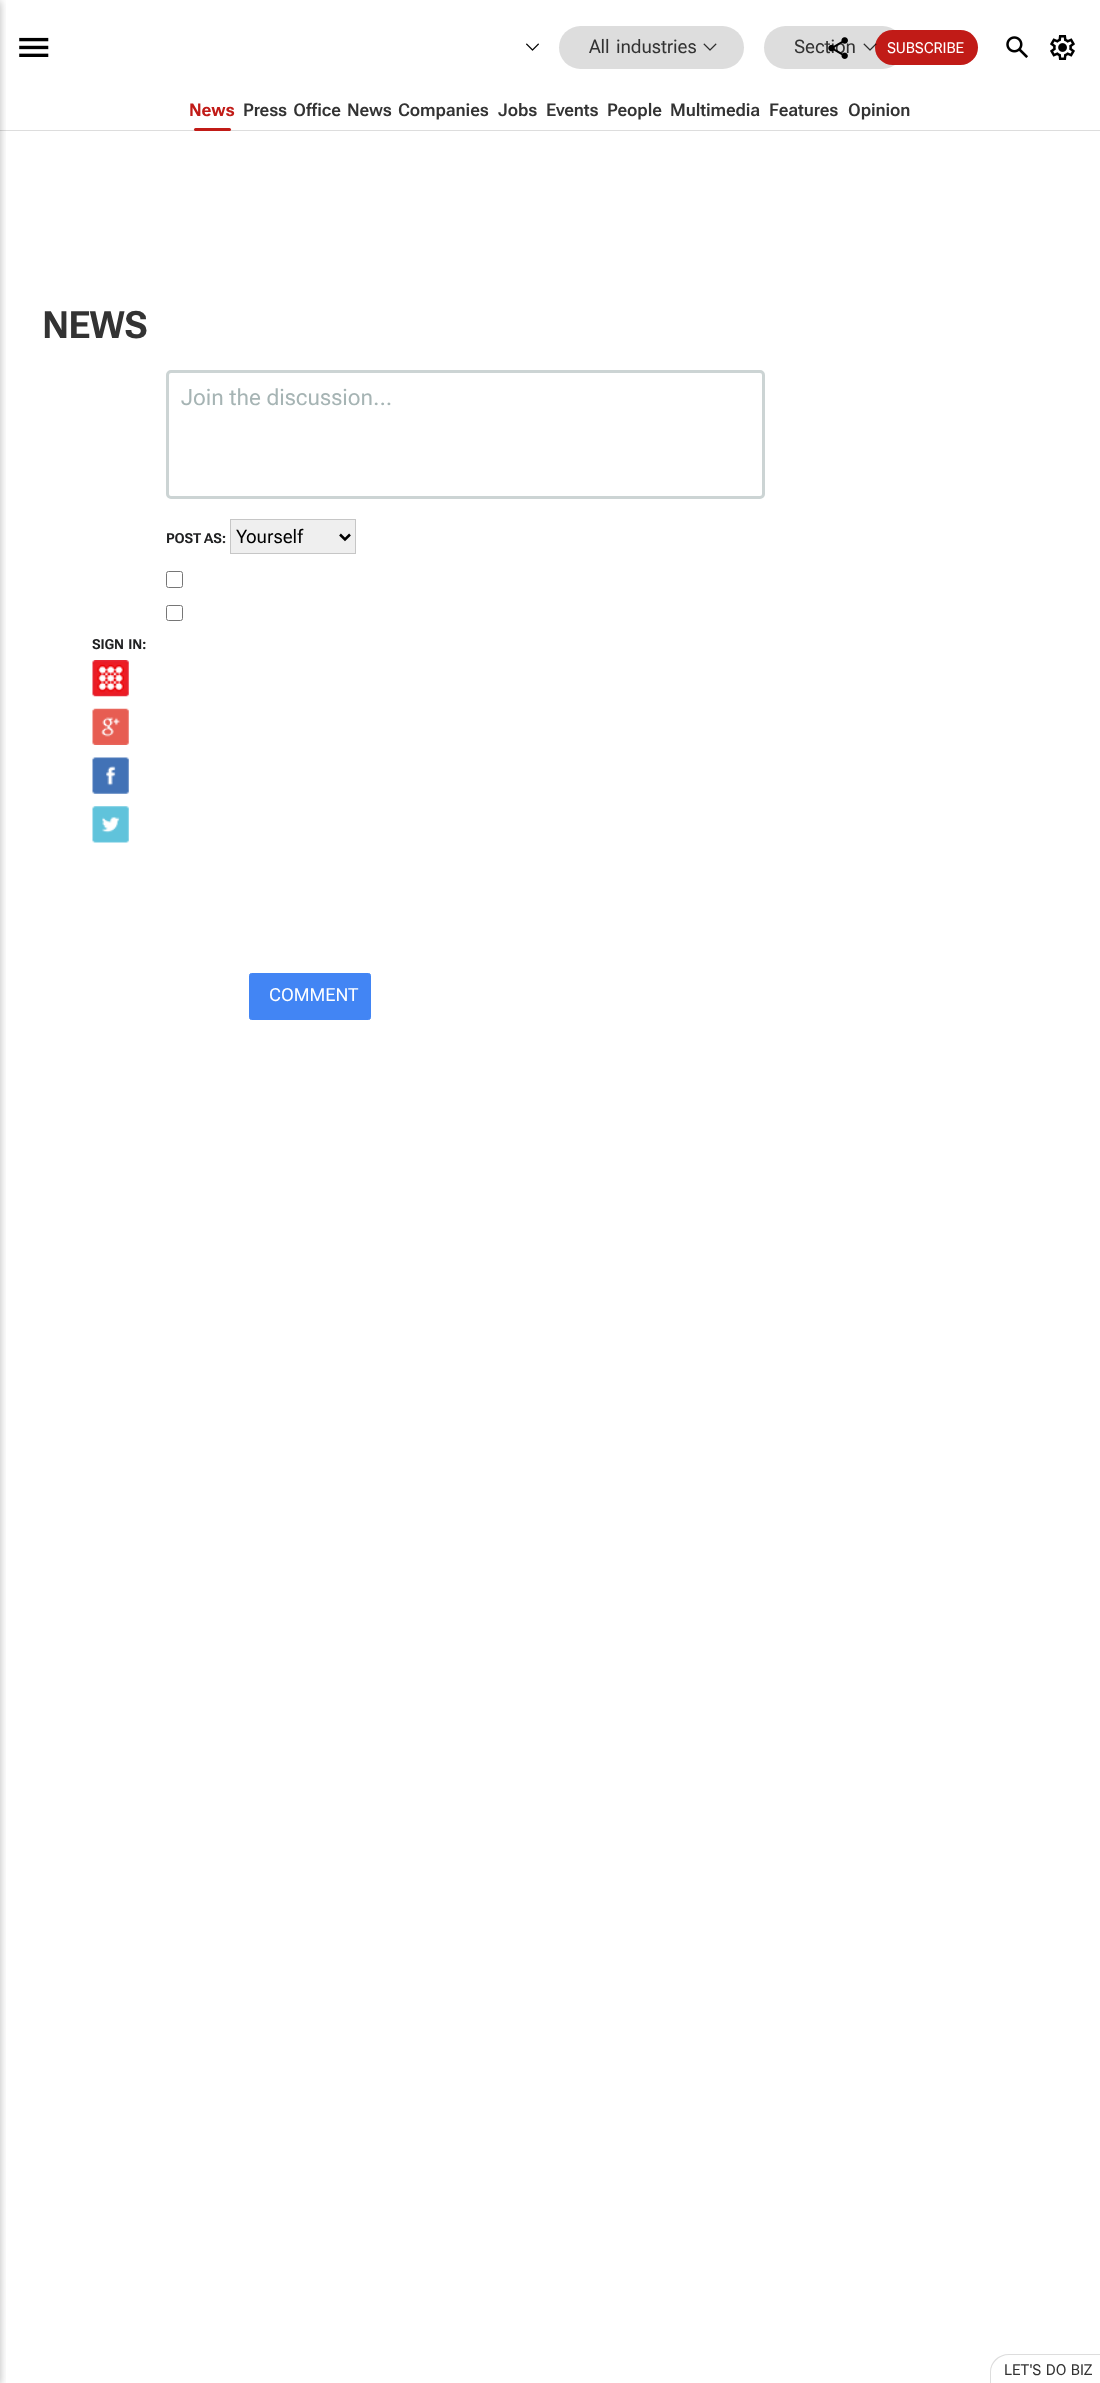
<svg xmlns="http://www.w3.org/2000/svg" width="1100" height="2383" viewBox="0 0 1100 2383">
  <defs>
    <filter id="blur1" x="-50%" y="-200%" width="200%" height="500%"><feGaussianBlur stdDeviation="4"/></filter>
  </defs>
  <rect width="100%" height="100%" fill="#ffffff"/>
  <rect x="0" y="130" width="1100" height="1" fill="#dddddd"/>
  <rect x="-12" y="1" width="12" height="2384" fill="#202124" fill-opacity="0.28" filter="url(#blur1)"/>
  <image x="19" y="37" width="30" height="20" href="img1.png"/>
  <image x="526" y="43" width="13" height="8" href="img2.png"/>
  <rect x="559" y="26" width="185" height="43" rx="21.5" fill="#dddddd"/>
  <text x="589" y="53" word-spacing="2" font-family="Roboto Flex" font-size="18.75" letter-spacing="-0.1" fill="#333333">All industries</text>
  <image x="703" y="43" width="14" height="8" href="img3.png"/>
  <rect x="764" y="26" width="140" height="43" rx="21.5" fill="#dddddd"/>
  <text x="794" y="53" font-family="Roboto Flex" font-size="18.75" letter-spacing="-0.1" fill="#333333">Section</text>
  <rect x="875" y="30" width="103" height="35" rx="17.5" fill="#c11b17"/>
  <image x="863" y="43" width="14" height="8" href="img4.png"/>
  <image x="828" y="37" width="20" height="22" href="img5.png"/>
  <text x="887" y="53" font-family="Roboto Flex" font-size="15" letter-spacing="-0.1" fill="#ffffff">SUBSCRIBE</text>
  <image x="1006" y="36" width="22" height="22" href="img6.png"/>
  <image x="1050" y="35" width="25" height="25" href="img7.png"/>
  <text x="189" y="116" font-family="Roboto Flex" font-size="17.5" font-weight="bold" letter-spacing="-0.1" fill="#c11b17">News</text>
  <rect x="194" y="128" width="37" height="3" rx="1.5" fill="#c11b17"/>
  <text x="243" y="116" word-spacing="2" font-family="Roboto Flex" font-size="17.5" font-weight="600" letter-spacing="-0.1" fill="#333333">Press Office News</text>
  <text x="398" y="116" font-family="Roboto Flex" font-size="17.5" font-weight="600" letter-spacing="-0.1" fill="#333333">Companies</text>
  <text x="498" y="116" font-family="Roboto Flex" font-size="17.5" font-weight="600" letter-spacing="-0.1" fill="#333333">Jobs</text>
  <text x="546" y="116" font-family="Roboto Flex" font-size="17.5" font-weight="600" letter-spacing="-0.1" fill="#333333">Events</text>
  <text x="607" y="116" font-family="Roboto Flex" font-size="17.5" font-weight="600" letter-spacing="-0.1" fill="#333333">People</text>
  <text x="670" y="116" font-family="Roboto Flex" font-size="17.5" font-weight="600" letter-spacing="-0.1" fill="#333333">Multimedia</text>
  <text x="769" y="116" font-family="Roboto Flex" font-size="17.5" font-weight="600" letter-spacing="-0.1" fill="#333333">Features</text>
  <text x="848" y="116" font-family="Roboto Flex" font-size="17.5" font-weight="600" letter-spacing="-0.1" fill="#333333">Opinion</text>
  <text x="42" y="338" font-family="Roboto Flex" font-size="37.5" font-weight="bold" letter-spacing="-1" fill="#333333">NEWS</text>
  <rect x="167.5" y="371.5" width="596" height="126" rx="3.5" fill="none" stroke="#ccd4d4" stroke-width="3"/>
  <text x="181" y="405" font-family="Roboto Flex" font-size="22.5" fill="#a6b4b4">Join the discussion...</text>
  <text x="166" y="543" font-family="Roboto Flex" font-size="13.75" font-weight="bold" letter-spacing="-0.1" fill="#202122">POST AS:</text>
  <rect x="230.5" y="519.5" width="125" height="34" fill="#efefef" stroke="#c6c6c6"/>
  <path d="M340 534.5L345 539.5L350 534.5" fill="none" stroke="#000000" stroke-width="2.5"/>
  <text x="236" y="543" font-family="Roboto Flex" font-size="18.75" fill="#000000">Yourself</text>
  <rect x="166.5" y="571.5" width="16" height="16" rx="2" fill="none" stroke="#767676"/>
  <rect x="166.5" y="605.5" width="16" height="15" rx="2" fill="none" stroke="#767676"/>
  <text x="92" y="649" word-spacing="1" font-family="Roboto Flex" font-size="13.75" font-weight="bold" letter-spacing="-0.1" fill="#202122">SIGN IN:</text>
  <image x="92" y="660" width="37" height="37" href="img8.png"/>
  <image x="92" y="708" width="37" height="37" href="img9.png"/>
  <image x="92" y="757" width="37" height="37" href="img10.png"/>
  <image x="92" y="806" width="37" height="37" href="img11.png"/>
  <rect x="249.5" y="973.5" width="121" height="46" rx="2" fill="#4285f4" stroke="#4285f4"/>
  <text x="269" y="1001" font-family="Roboto Flex" font-size="18" fill="#ffffff">COMMENT</text>
  <path d="M1009 2354H1100V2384H990V2372C990 2362 998 2354 1009 2354ZM1009 2355H1100V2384H991V2372C991 2363 999 2355 1009 2355Z" fill="#dddddd" fill-rule="evenodd"/>
  <text x="1004" y="2375" word-spacing="1" font-family="Roboto Flex" font-size="15" letter-spacing="-0.1" fill="#333333">LET'S DO BIZ</text>
</svg>
